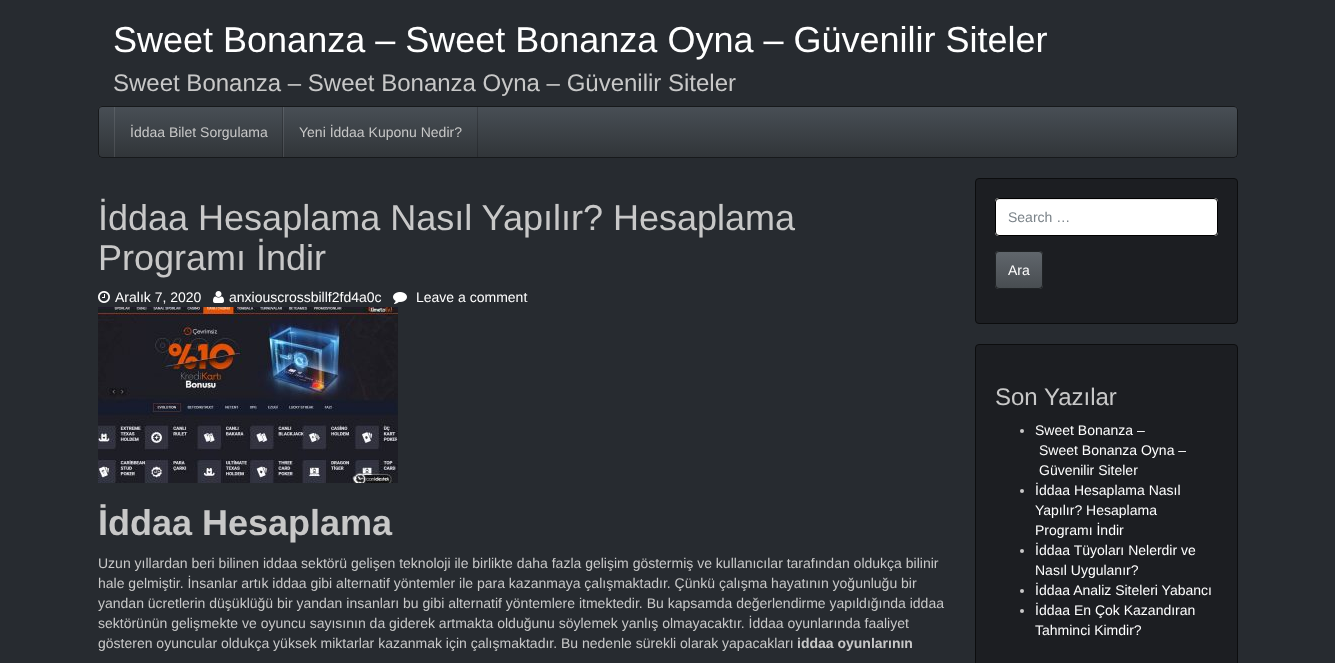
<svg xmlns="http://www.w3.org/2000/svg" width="1335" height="663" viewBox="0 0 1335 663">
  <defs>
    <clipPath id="clip1"><rect x="98" y="106" width="1140" height="52" rx="4"/></clipPath>
    <linearGradient id="g1" gradientUnits="userSpaceOnUse" x1="668" y1="107" x2="668" y2="157"><stop offset="0" stop-color="#484e55"/><stop offset="0.6" stop-color="#3a3f44"/><stop offset="1" stop-color="#313539"/></linearGradient>
    <linearGradient id="g2" gradientUnits="userSpaceOnUse" x1="668" y1="107" x2="668" y2="157"><stop offset="0" stop-color="#5a6066"/><stop offset="0.6" stop-color="#4e5257"/><stop offset="1" stop-color="#46494d"/></linearGradient>
    <linearGradient id="g3" gradientUnits="userSpaceOnUse" x1="668" y1="107" x2="668" y2="157"><stop offset="0" stop-color="#3a3e44"/><stop offset="0.6" stop-color="#2e3236"/><stop offset="1" stop-color="#272a2e"/></linearGradient>
    <clipPath id="clip2"><rect x="995" y="251" width="48" height="38" rx="4"/></clipPath>
    <linearGradient id="g4" gradientUnits="userSpaceOnUse" x1="1019" y1="252" x2="1019" y2="288"><stop offset="0" stop-color="#60666c"/><stop offset="0.6" stop-color="#52575c"/><stop offset="1" stop-color="#484d51"/></linearGradient>
  </defs>
  <rect width="100%" height="100%" fill="#272b30"/>
  <text x="113" y="52" font-family="Liberation Sans" font-size="36" fill="#ffffff">Sweet Bonanza – Sweet Bonanza Oyna – Güvenilir Siteler</text>
  <text x="113" y="91" font-family="Liberation Sans" font-size="24" fill="#c8c8c8">Sweet Bonanza – Sweet Bonanza Oyna – Güvenilir Siteler</text>
  <rect x="98" y="106" width="1140" height="52" rx="4" fill="#3a3f44"/>
  <g clip-path="url(#clip1)">
    <rect x="99" y="107" width="1138" height="50" fill="url(#g1)"/>
  </g>
  <rect x="283" y="107" width="1" height="50" fill="url(#g2)"/>
  <rect x="477" y="107" width="1" height="50" fill="url(#g3)"/>
  <rect x="114" y="107" width="1" height="50" fill="url(#g2)"/>
  <rect x="282" y="107" width="1" height="50" fill="url(#g3)"/>
  <rect x="98.5" y="106.5" width="1139" height="51" rx="3.5" fill="none" stroke="#000000" stroke-opacity="0.6"/>
  <text x="130" y="137" font-family="Liberation Sans" font-size="14" fill="#c8c8c8">İddaa Bilet Sorgulama</text>
  <text x="299" y="137" font-family="Liberation Sans" font-size="14" fill="#c8c8c8">Yeni İddaa Kuponu Nedir?</text>
  <text x="98" y="230" font-family="Liberation Sans" font-size="36" fill="#c8c8c8">İddaa Hesaplama Nasıl Yapılır? Hesaplama</text>
  <text x="98" y="270" font-family="Liberation Sans" font-size="36" fill="#c8c8c8">Programı İndir</text>
  <image x="98" y="291" width="12" height="12" href="img1.png"/>
  <text x="115" y="302" font-family="Liberation Sans" font-size="14" fill="#ffffff">Aralık 7, 2020</text>
  <image x="213" y="291" width="11" height="12" href="img2.png"/>
  <text x="229" y="302" font-family="Liberation Sans" font-size="14" fill="#ffffff">anxiouscrossbillf2fd4a0c</text>
  <image x="393" y="292" width="14" height="12" href="img3.png"/>
  <text x="416" y="302" font-family="Liberation Sans" font-size="14" fill="#ffffff">Leave a comment</text>
  <image x="98" y="307" width="300" height="176" href="img4.png"/>
  <text x="98" y="535" font-family="Liberation Sans" font-size="36" font-weight="bold" fill="#c8c8c8">İddaa Hesaplama</text>
  <text x="98" y="568" font-family="Liberation Sans" font-size="14" fill="#c8c8c8">Uzun yıllardan beri bilinen iddaa sektörü gelişen teknoloji ile birlikte daha fazla gelişim göstermiş ve kullanıcılar tarafından oldukça bilinir</text>
  <text x="98" y="588" font-family="Liberation Sans" font-size="14" fill="#c8c8c8">hale gelmiştir. İnsanlar artık iddaa gibi alternatif yöntemler ile para kazanmaya çalışmaktadır. Çünkü çalışma hayatının yoğunluğu bir</text>
  <text x="98" y="608" font-family="Liberation Sans" font-size="14" fill="#c8c8c8">yandan ücretlerin düşüklüğü bir yandan insanları bu gibi alternatif yöntemlere itmektedir. Bu kapsamda değerlendirme yapıldığında iddaa</text>
  <text x="98" y="628" font-family="Liberation Sans" font-size="14" fill="#c8c8c8">sektörünün gelişmekte ve oyuncu sayısının da giderek artmakta olduğunu söylemek yanlış olmayacaktır. İddaa oyunlarında faaliyet</text>
  <text x="98" y="648" font-family="Liberation Sans" font-size="14" fill="#c8c8c8">gösteren oyuncular oldukça yüksek miktarlar kazanmak için çalışmaktadır. Bu nedenle sürekli olarak yapacakları</text>
  <text x="797" y="648" font-family="Liberation Sans" font-size="14" font-weight="bold" fill="#c8c8c8">iddaa oyunlarının</text>
  <rect x="975.5" y="178.5" width="262" height="145" rx="3.5" fill="#1c1e22" stroke="#0c0d0e"/>
  <rect x="995" y="198" width="223" height="38" rx="4" fill="#ffffff"/>
  <path d="M999 200H1214C1216 200 1217 201 1217 203V202C1217 200 1216 199 1214 199H999C997 199 996 200 996 202V203C996 201 997 200 999 200Z" fill="#ececec"/>
  <rect x="995.5" y="198.5" width="222" height="37" rx="3.5" fill="none" stroke="#000000"/>
  <text x="1008" y="222" font-family="Liberation Sans" font-size="14" fill="#7a8288">Search …</text>
  <rect x="995" y="251" width="48" height="38" rx="4" fill="#52575c"/>
  <g clip-path="url(#clip2)">
    <rect x="996" y="252" width="46" height="36" fill="url(#g4)"/>
  </g>
  <rect x="995.5" y="251.5" width="47" height="37" rx="3.5" fill="none" stroke="#000000" stroke-opacity="0.6"/>
  <text x="1008" y="275" font-family="Liberation Sans" font-size="14" fill="#ffffff">Ara</text>
  <rect x="975.5" y="344.5" width="262" height="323" rx="3.5" fill="#1c1e22" stroke="#0c0d0e"/>
  <text x="995" y="405" font-family="Liberation Sans" font-size="24" fill="#c8c8c8">Son Yazılar</text>
  <circle cx="1022" cy="431" r="2" fill="#c8c8c8"/>
  <text x="1035" y="435" font-family="Liberation Sans" font-size="14" fill="#ffffff">Sweet Bonanza –</text>
  <text x="1039" y="455" font-family="Liberation Sans" font-size="14" fill="#ffffff">Sweet Bonanza Oyna –</text>
  <text x="1039" y="475" font-family="Liberation Sans" font-size="14" fill="#ffffff">Güvenilir Siteler</text>
  <circle cx="1022" cy="491" r="2" fill="#c8c8c8"/>
  <text x="1035" y="495" font-family="Liberation Sans" font-size="14" fill="#ffffff">İddaa Hesaplama Nasıl</text>
  <text x="1035" y="515" font-family="Liberation Sans" font-size="14" fill="#ffffff">Yapılır? Hesaplama</text>
  <text x="1035" y="535" font-family="Liberation Sans" font-size="14" fill="#ffffff">Programı İndir</text>
  <circle cx="1022" cy="551" r="2" fill="#c8c8c8"/>
  <text x="1035" y="555" font-family="Liberation Sans" font-size="14" fill="#ffffff">İddaa Tüyoları Nelerdir ve</text>
  <text x="1035" y="575" font-family="Liberation Sans" font-size="14" fill="#ffffff">Nasıl Uygulanır?</text>
  <circle cx="1022" cy="591" r="2" fill="#c8c8c8"/>
  <text x="1035" y="595" font-family="Liberation Sans" font-size="14" fill="#ffffff">İddaa Analiz Siteleri Yabancı</text>
  <circle cx="1022" cy="611" r="2" fill="#c8c8c8"/>
  <text x="1035" y="615" font-family="Liberation Sans" font-size="14" fill="#ffffff">İddaa En Çok Kazandıran</text>
  <text x="1035" y="635" font-family="Liberation Sans" font-size="14" fill="#ffffff">Tahminci Kimdir?</text>
</svg>
